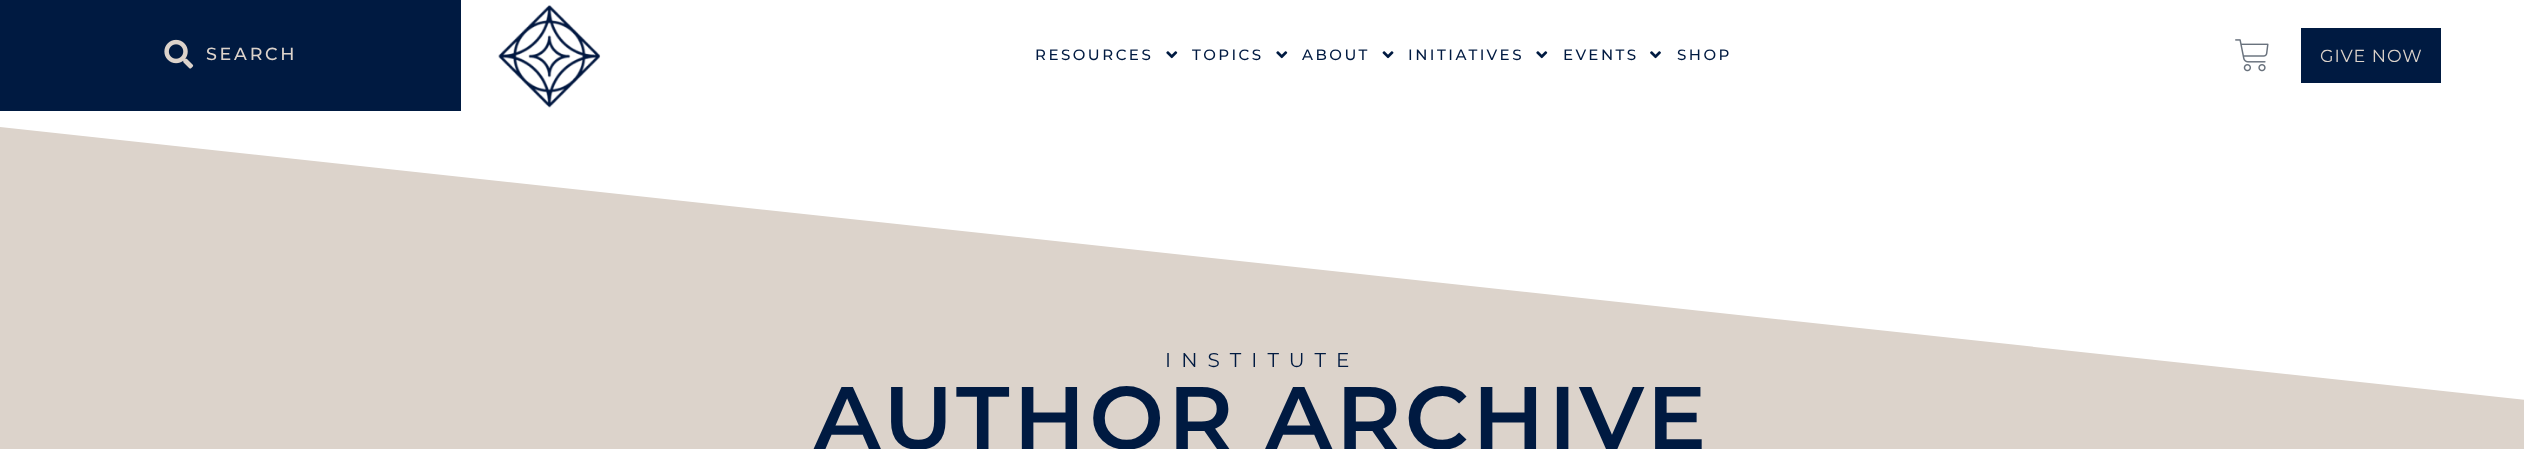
<svg xmlns="http://www.w3.org/2000/svg" width="2524" height="449" viewBox="0 0 2524 449">
  <rect width="100%" height="100%" fill="#ffffff"/>
  <rect x="0" y="127" width="2524" height="322" fill="#dcd3cb"/>
  <path d="M-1 127V110H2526V400Z" fill="#ffffff"/>
  <rect x="0" y="0" width="461" height="111" fill="#001a41"/>
  <image x="164" y="39" width="30" height="30" href="img1.png"/>
  <text x="206" y="60" font-family="Montserrat" font-size="17.5" font-weight="500" letter-spacing="2.75" fill="#dcd3cb">SEARCH</text>
  <image x="498" y="5" width="103" height="103" href="img2.png"/>
  <text x="1035" y="60" font-family="Montserrat" font-size="15" font-weight="500" letter-spacing="2.5" fill="#001a41">RESOURCES</text>
  <image x="1166" y="51" width="12" height="8" href="img3.png"/>
  <text x="1192" y="60" font-family="Montserrat" font-size="15" font-weight="500" letter-spacing="2.5" fill="#001a41">TOPICS</text>
  <image x="1276" y="51" width="12" height="8" href="img3.png"/>
  <text x="1302" y="60" font-family="Montserrat" font-size="15" font-weight="500" letter-spacing="2.5" fill="#001a41">ABOUT</text>
  <image x="1382" y="51" width="12" height="8" href="img4.png"/>
  <text x="1408" y="60" font-family="Montserrat" font-size="15" font-weight="500" letter-spacing="2.5" fill="#001a41">INITIATIVES</text>
  <image x="1536" y="51" width="12" height="8" href="img3.png"/>
  <text x="1563" y="60" font-family="Montserrat" font-size="15" font-weight="500" letter-spacing="2.5" fill="#001a41">EVENTS</text>
  <image x="1650" y="51" width="11" height="8" href="img5.png"/>
  <text x="1677" y="60" font-family="Montserrat" font-size="15" font-weight="500" letter-spacing="2.5" fill="#001a41">SHOP</text>
  <image x="2235" y="39" width="34" height="33" href="img6.png"/>
  <rect x="2301" y="28" width="140" height="55" fill="#001a41"/>
  <text x="2320" y="62" font-family="Montserrat" font-size="17.5" letter-spacing="1" fill="#dcd3cb">GIVE NOW</text>
  <text x="1165" y="367" font-family="Montserrat" font-size="20" letter-spacing="10.1" fill="#001a41">INSTITUTE</text>
  <text x="814" y="449" font-family="Montserrat" font-size="88.75" font-weight="600" letter-spacing="4" fill="#001a41">AUTHOR ARCHIVE</text>
</svg>
